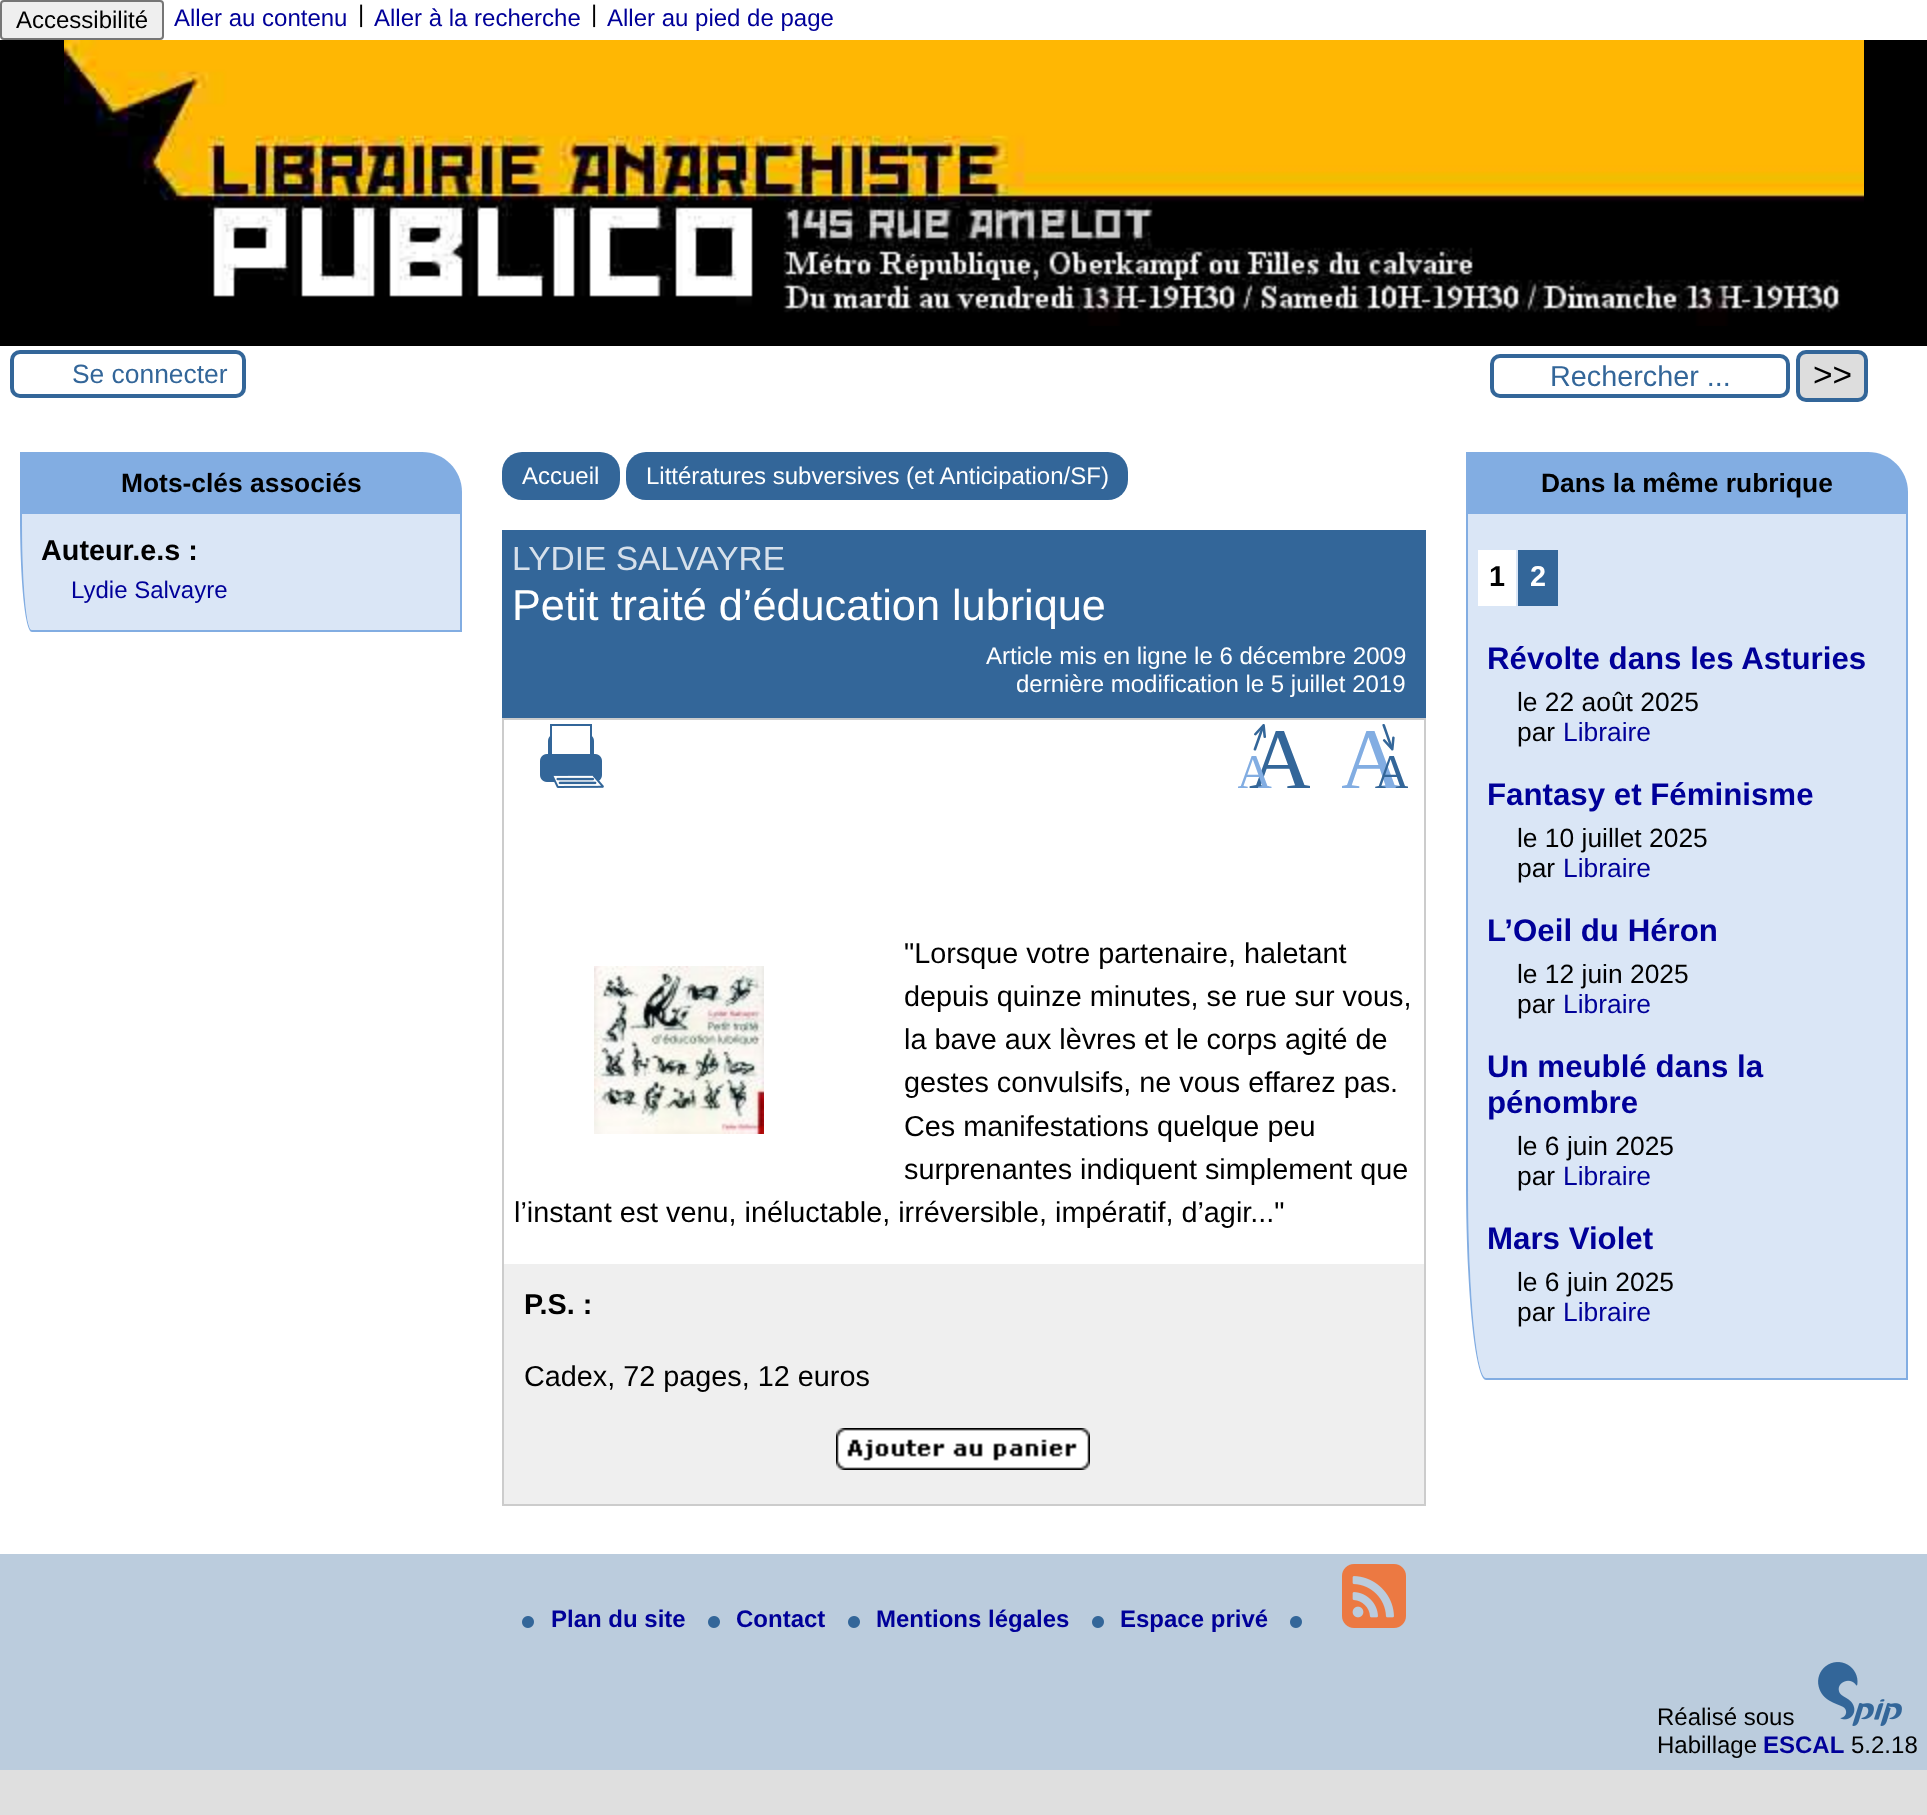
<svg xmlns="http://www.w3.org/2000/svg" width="1927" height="1815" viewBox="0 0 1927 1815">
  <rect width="100%" height="100%" fill="#dfdfdf"/>
  <rect x="0" y="346" width="1927" height="1208" fill="#ffffff"/>
  <rect x="0" y="40" width="1927" height="306" fill="#000000"/>
  <rect x="0" y="0" width="1927" height="40" fill="#ffffff"/>
  <rect x="1" y="1" width="162" height="38" rx="3" fill="#efefef" stroke="#767676" stroke-width="2"/>
  <text x="16" y="28" font-family="Liberation Sans" font-size="24" fill="#000000">Accessibilité</text>
  <text x="174" y="26" font-family="Liberation Sans" font-size="24" fill="#000099">Aller au contenu</text>
  <text x="358" y="22" font-family="Liberation Sans" font-size="24" fill="#000000">|</text>
  <text x="374" y="26" font-family="Liberation Sans" font-size="24" fill="#000099">Aller à la recherche</text>
  <text x="591" y="22" font-family="Liberation Sans" font-size="24" fill="#000000">|</text>
  <text x="607" y="26" font-family="Liberation Sans" font-size="24" fill="#000099">Aller au pied de page</text>
  <image x="64" y="40" width="1800" height="286" href="img1.png"/>
  <rect x="12" y="352" width="232" height="44" rx="8" fill="none" stroke="#336699" stroke-width="4"/>
  <text x="72" y="383" font-family="Liberation Sans" font-size="26.4" fill="#336699">Se connecter</text>
  <rect x="1492" y="356" width="296" height="40" rx="8" fill="none" stroke="#336699" stroke-width="4"/>
  <text x="1550" y="386" font-family="Liberation Sans" font-size="28.8" fill="#336699">Rechercher ...</text>
  <rect x="1798" y="352" width="68" height="48" rx="8" fill="#dddddd" stroke="#336699" stroke-width="4"/>
  <text x="1813" y="386" font-family="Liberation Sans" font-size="33.5" fill="#000000">&gt;&gt;</text>
  <path d="M20 452H422C444 452 462 470 462 492V514H20Z" fill="#82ade2"/>
  <text x="121" y="492" font-family="Liberation Sans" font-size="26.4" font-weight="bold" fill="#000000">Mots-clés associés</text>
  <path d="M22 514H460V630H32C26 630 22 578 22 514Z" fill="#dae6f6"/>
  <path d="M20 514H462V632H32C25 632 20 579 20 514ZM22 514H460V630H32C26 630 22 578 22 514Z" fill="#82ade2" fill-rule="evenodd"/>
  <text x="41" y="560" font-family="Liberation Sans" font-size="28.8" font-weight="bold" fill="#000000">Auteur.e.s :</text>
  <text x="71" y="598" font-family="Liberation Sans" font-size="24" fill="#000099">Lydie Salvayre</text>
  <rect x="502" y="452" width="118" height="48" rx="20" fill="#336699"/>
  <text x="522" y="484" font-family="Liberation Sans" font-size="24" fill="#ffffff">Accueil</text>
  <rect x="626" y="452" width="502" height="48" rx="20" fill="#336699"/>
  <text x="646" y="484" font-family="Liberation Sans" font-size="24" fill="#ffffff">Littératures subversives (et Anticipation/SF)</text>
  <rect x="502" y="530" width="924" height="188" fill="#336699"/>
  <text x="512" y="570" font-family="Liberation Sans" font-size="33.5" fill="#d6e0eb">LYDIE SALVAYRE</text>
  <text x="512" y="620" font-family="Liberation Sans" font-size="43.25" fill="#ffffff">Petit traité d’éducation lubrique</text>
  <text x="986" y="664" font-family="Liberation Sans" font-size="24" fill="#ffffff">Article mis en ligne le 6 décembre 2009</text>
  <text x="1016" y="692" font-family="Liberation Sans" font-size="24" fill="#ffffff">dernière modification le 5 juillet 2019</text>
  <rect x="503" y="719" width="922" height="786" fill="none" stroke="#cccccc" stroke-width="2"/>
  <image x="540" y="724" width="64" height="64" href="img2.png"/>
  <image x="1238" y="724" width="72" height="64" href="img3.png"/>
  <image x="1342" y="724" width="66" height="64" href="img4.png"/>
  <text x="904" y="963" font-family="Liberation Sans" font-size="28.8" fill="#000000">"Lorsque votre partenaire, haletant</text>
  <text x="904" y="1006" font-family="Liberation Sans" font-size="28.8" fill="#000000">depuis quinze minutes, se rue sur vous,</text>
  <text x="904" y="1049" font-family="Liberation Sans" font-size="28.8" fill="#000000">la bave aux lèvres et le corps agité de</text>
  <text x="904" y="1092" font-family="Liberation Sans" font-size="28.8" fill="#000000">gestes convulsifs, ne vous effarez pas.</text>
  <text x="904" y="1136" font-family="Liberation Sans" font-size="28.8" fill="#000000">Ces manifestations quelque peu</text>
  <text x="904" y="1179" font-family="Liberation Sans" font-size="28.8" fill="#000000">surprenantes indiquent simplement que</text>
  <text x="514" y="1222" font-family="Liberation Sans" font-size="28.8" fill="#000000">l’instant est venu, inéluctable, irréversible, impératif, d’agir..."</text>
  <image x="594" y="966" width="170" height="168" href="img5.png"/>
  <rect x="504" y="1264" width="920" height="240" fill="#efefef"/>
  <text x="524" y="1314" font-family="Liberation Sans" font-size="28.8" font-weight="bold" fill="#000000">P.S. :</text>
  <text x="524" y="1386" font-family="Liberation Sans" font-size="28.8" fill="#000000">Cadex, 72 pages, 12 euros</text>
  <image x="836" y="1428" width="254" height="42" href="img6.png"/>
  <path d="M1466 452H1868C1890 452 1908 470 1908 492V514H1466Z" fill="#82ade2"/>
  <text x="1541" y="492" font-family="Liberation Sans" font-size="26.4" font-weight="bold" fill="#000000">Dans la même rubrique</text>
  <path d="M1468 514H1906V1378H1486C1476 1378 1468 1289 1468 1180Z" fill="#dae6f6"/>
  <path d="M1466 514H1908V1380H1486C1475 1380 1466 1290 1466 1180ZM1468 514H1906V1378H1486C1476 1378 1468 1289 1468 1180Z" fill="#82ade2" fill-rule="evenodd"/>
  <rect x="1478" y="550" width="38" height="56" fill="#ffffff"/>
  <text x="1489" y="586" font-family="Liberation Sans" font-size="28.8" font-weight="bold" fill="#000000">1</text>
  <rect x="1518" y="550" width="40" height="56" fill="#336699"/>
  <text x="1530" y="586" font-family="Liberation Sans" font-size="28.8" font-weight="bold" fill="#ffffff">2</text>
  <text x="1487" y="669" font-family="Liberation Sans" font-size="31.25" font-weight="bold" fill="#000099">Révolte dans les Asturies</text>
  <text x="1517" y="711" font-family="Liberation Sans" font-size="26.4" fill="#000000">le 22 août 2025</text>
  <text x="1517" y="741" font-family="Liberation Sans" font-size="26.4" fill="#000000">par</text>
  <text x="1563" y="741" font-family="Liberation Sans" font-size="26.4" fill="#000099">Libraire</text>
  <text x="1487" y="805" font-family="Liberation Sans" font-size="31.25" font-weight="bold" fill="#000099">Fantasy et Féminisme</text>
  <text x="1517" y="847" font-family="Liberation Sans" font-size="26.4" fill="#000000">le 10 juillet 2025</text>
  <text x="1517" y="877" font-family="Liberation Sans" font-size="26.4" fill="#000000">par</text>
  <text x="1563" y="877" font-family="Liberation Sans" font-size="26.4" fill="#000099">Libraire</text>
  <text x="1487" y="941" font-family="Liberation Sans" font-size="31.25" font-weight="bold" fill="#000099">L’Oeil du Héron</text>
  <text x="1517" y="983" font-family="Liberation Sans" font-size="26.4" fill="#000000">le 12 juin 2025</text>
  <text x="1517" y="1013" font-family="Liberation Sans" font-size="26.4" fill="#000000">par</text>
  <text x="1563" y="1013" font-family="Liberation Sans" font-size="26.4" fill="#000099">Libraire</text>
  <text x="1487" y="1077" font-family="Liberation Sans" font-size="31.25" font-weight="bold" fill="#000099">Un meublé dans la</text>
  <text x="1487" y="1113" font-family="Liberation Sans" font-size="31.25" font-weight="bold" fill="#000099">pénombre</text>
  <text x="1517" y="1155" font-family="Liberation Sans" font-size="26.4" fill="#000000">le 6 juin 2025</text>
  <text x="1517" y="1185" font-family="Liberation Sans" font-size="26.4" fill="#000000">par</text>
  <text x="1563" y="1185" font-family="Liberation Sans" font-size="26.4" fill="#000099">Libraire</text>
  <text x="1487" y="1249" font-family="Liberation Sans" font-size="31.25" font-weight="bold" fill="#000099">Mars Violet</text>
  <text x="1517" y="1291" font-family="Liberation Sans" font-size="26.4" fill="#000000">le 6 juin 2025</text>
  <text x="1517" y="1321" font-family="Liberation Sans" font-size="26.4" fill="#000000">par</text>
  <text x="1563" y="1321" font-family="Liberation Sans" font-size="26.4" fill="#000099">Libraire</text>
  <rect x="0" y="1554" width="1927" height="216" fill="#bbccdd"/>
  <image x="522" y="1616" width="12" height="12" href="img7.png"/>
  <text x="551" y="1627" font-family="Liberation Sans" font-size="24" font-weight="bold" fill="#000099">Plan du site</text>
  <image x="708" y="1616" width="12" height="12" href="img7.png"/>
  <text x="736" y="1627" font-family="Liberation Sans" font-size="24" font-weight="bold" fill="#000099">Contact</text>
  <image x="848" y="1616" width="12" height="12" href="img7.png"/>
  <text x="876" y="1627" font-family="Liberation Sans" font-size="24" font-weight="bold" fill="#000099">Mentions légales</text>
  <image x="1092" y="1616" width="12" height="12" href="img7.png"/>
  <text x="1120" y="1627" font-family="Liberation Sans" font-size="24" font-weight="bold" fill="#000099">Espace privé</text>
  <image x="1290" y="1616" width="12" height="12" href="img7.png"/>
  <image x="1342" y="1564" width="64" height="64" href="img8.png"/>
  <text x="1657" y="1725" font-family="Liberation Sans" font-size="24" fill="#000000">Réalisé sous</text>
  <image x="1818" y="1662" width="84" height="64" href="img9.png"/>
  <text x="1657" y="1753" font-family="Liberation Sans" font-size="24" fill="#000000">Habillage</text>
  <text x="1763" y="1753" font-family="Liberation Sans" font-size="24" font-weight="bold" fill="#000099">ESCAL</text>
  <text x="1851" y="1753" font-family="Liberation Sans" font-size="24" fill="#000000">5.2.18</text>
</svg>
